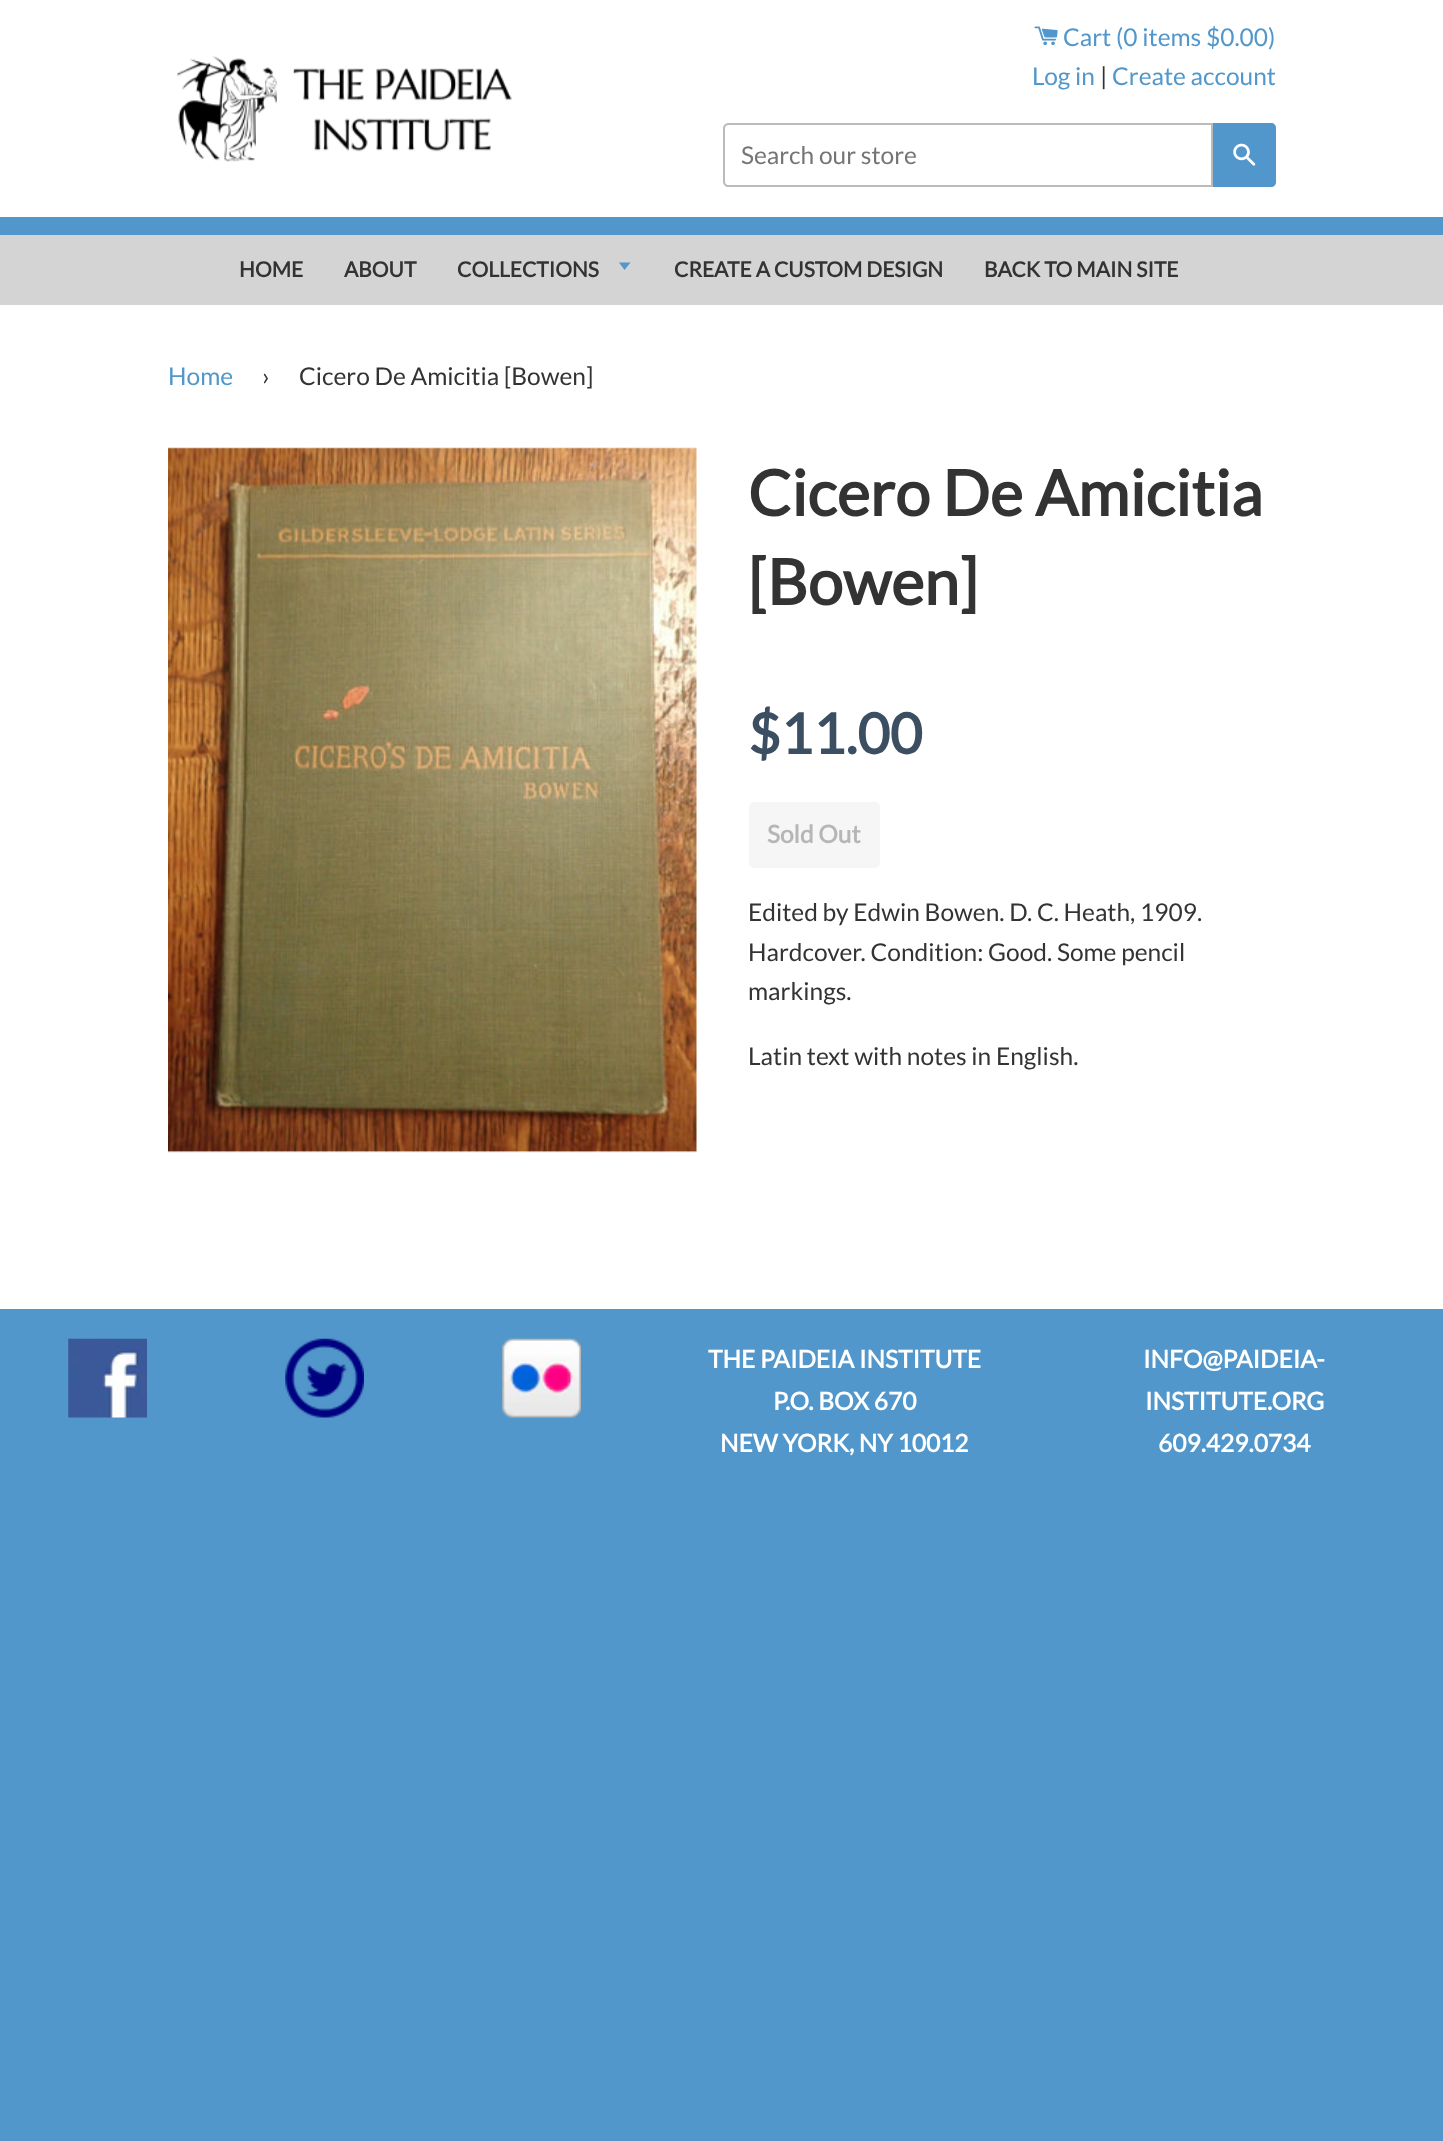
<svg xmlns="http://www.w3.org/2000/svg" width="1443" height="2141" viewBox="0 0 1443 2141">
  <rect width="100%" height="100%" fill="#5297cb"/>
  <rect x="0" y="0" width="1443" height="1309" fill="#ffffff"/>
  <image x="177" y="56" width="335" height="106" href="img1.png"/>
  <image x="1034" y="26" width="24" height="20" href="img2.png"/>
  <text x="1063" y="46" font-family="Lato" font-size="24.5" fill="#5297cb">Cart (0 items $0.00)</text>
  <text x="1032" y="85" font-family="Lato" font-size="24.5" fill="#5297cb">Log in</text>
  <text x="1100" y="85" font-family="Lato" font-size="24.5" fill="#333333">|</text>
  <text x="1112" y="85" font-family="Lato" font-size="24.5" fill="#5297cb">Create account</text>
  <path d="M728 124H1212V186H728C726 186 724 184 724 182V128C724 126 726 124 728 124Z" fill="none" stroke="#bbbbbb" stroke-width="2"/>
  <text x="741" y="164" font-family="Lato" font-size="24.5" fill="#757575">Search our store</text>
  <path d="M1213 123H1271C1274 123 1276 125 1276 128V182C1276 185 1274 187 1271 187H1213Z" fill="#5297cb"/>
  <image x="1233" y="143" width="23" height="23" href="img3.png"/>
  <rect x="0" y="217" width="1443" height="18" fill="#5297cb"/>
  <rect x="0" y="235" width="1443" height="70" fill="#d4d4d4"/>
  <text x="239" y="277" font-family="Lato" font-size="21" font-weight="bold" fill="#333333">HOME</text>
  <text x="344" y="277" font-family="Lato" font-size="21" font-weight="bold" fill="#333333">ABOUT</text>
  <text x="457" y="277" font-family="Lato" font-size="21" font-weight="bold" fill="#333333">COLLECTIONS</text>
  <path d="M619 262.5L624.5 270L630.5 262.5Z" fill="#5297cb"/>
  <text x="674" y="277" font-family="Lato" font-size="21" font-weight="bold" fill="#333333">CREATE A CUSTOM DESIGN</text>
  <text x="984" y="277" font-family="Lato" font-size="21" font-weight="bold" fill="#333333">BACK TO MAIN SITE</text>
  <text x="168" y="385" font-family="Lato" font-size="24.5" fill="#5297cb">Home</text>
  <text x="262" y="385" font-family="Lato" font-size="24.5" fill="#333333">›</text>
  <text x="299" y="385" font-family="Lato" font-size="24.5" fill="#333333">Cicero De Amicitia [Bowen]</text>
  <image x="168" y="447" width="529" height="706" href="img4.png"/>
  <text x="748" y="516" font-family="Lato" font-size="63" font-weight="bold" fill="#333333">Cicero De Amicitia</text>
  <text x="748" y="605" font-family="Lato" font-size="63" font-weight="bold" fill="#333333">[Bowen]</text>
  <text x="748" y="754" font-family="Lato" font-size="56" font-weight="bold" fill="#3c4e62">$11.00</text>
  <rect x="749" y="802" width="131" height="66" rx="5" fill="#f6f6f6"/>
  <text x="767" y="843" font-family="Lato" font-size="24.5" font-weight="bold" fill="#b6b6b6">Sold Out</text>
  <text x="748" y="921" font-family="Lato" font-size="24.5" fill="#333333">Edited by Edwin Bowen. D. C. Heath, 1909.</text>
  <text x="748" y="961" font-family="Lato" font-size="24.5" fill="#333333">Hardcover. Condition: Good. Some pencil</text>
  <text x="748" y="1000" font-family="Lato" font-size="24.5" fill="#333333">markings.</text>
  <text x="748" y="1065" font-family="Lato" font-size="24.5" fill="#333333">Latin text with notes in English.</text>
  <image x="68" y="1338" width="79" height="80" href="img5.png"/>
  <image x="285" y="1338" width="79" height="80" href="img6.png"/>
  <image x="502" y="1338" width="79" height="80" href="img7.png"/>
  <text x="708" y="1368" font-family="Lato" font-size="24.5" font-weight="bold" fill="#ffffff">THE PAIDEIA INSTITUTE</text>
  <text x="773" y="1410" font-family="Lato" font-size="24.5" font-weight="bold" fill="#ffffff">P.O. BOX 670</text>
  <text x="720" y="1452" font-family="Lato" font-size="24.5" font-weight="bold" fill="#ffffff">NEW YORK, NY 10012</text>
  <text x="1143" y="1368" font-family="Lato" font-size="24.5" font-weight="bold" fill="#ffffff">INFO@PAIDEIA-</text>
  <text x="1145" y="1410" font-family="Lato" font-size="24.5" font-weight="bold" fill="#ffffff">INSTITUTE.ORG</text>
  <text x="1158" y="1452" font-family="Lato" font-size="24.5" font-weight="bold" fill="#ffffff">609.429.0734</text>
</svg>
